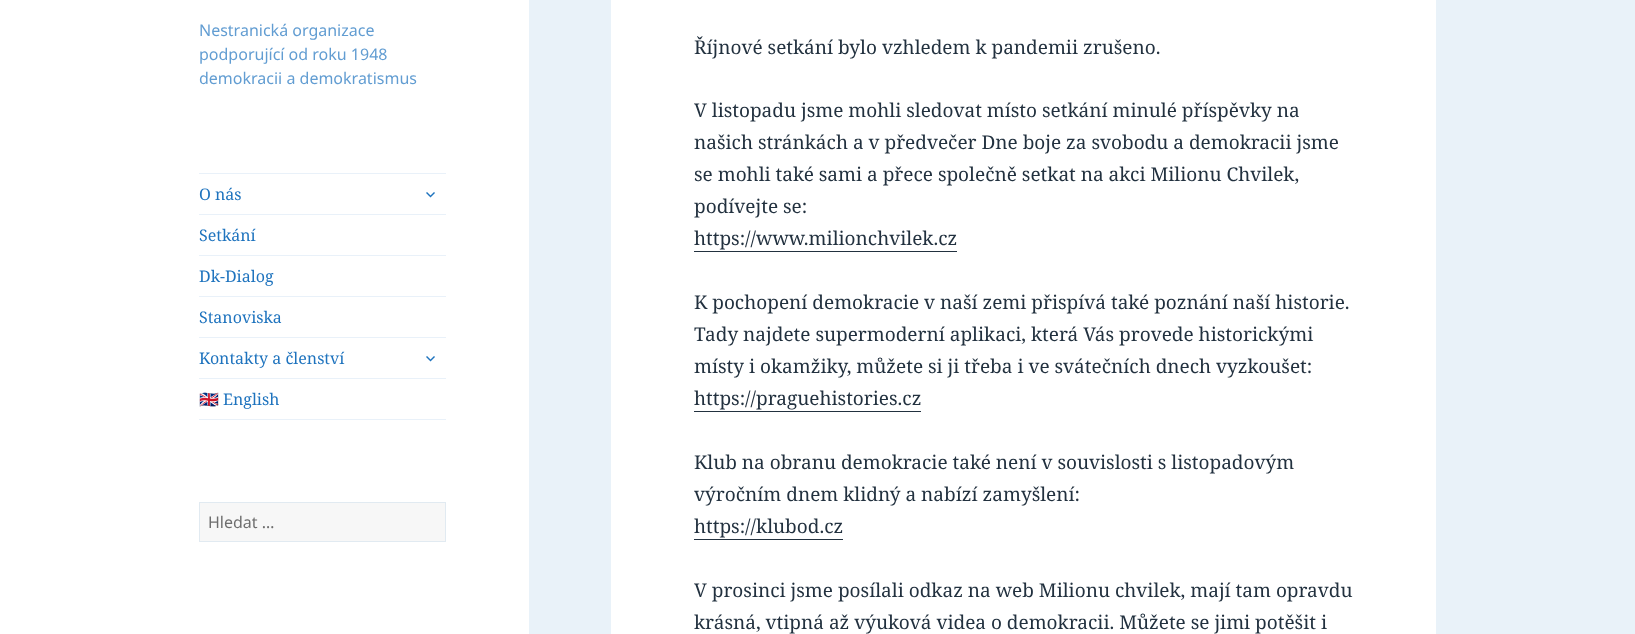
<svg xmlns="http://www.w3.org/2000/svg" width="1635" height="634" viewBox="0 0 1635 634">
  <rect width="100%" height="100%" fill="#e9f2f9"/>
  <rect x="0" y="0" width="529" height="634" fill="#ffffff"/>
  <text x="199" y="36" font-family="Noto Sans" font-size="16" fill="#629dd2">Nestranická organizace</text>
  <text x="199" y="60" font-family="Noto Sans" font-size="16" fill="#629dd2">podporující od roku 1948</text>
  <text x="199" y="84" font-family="Noto Sans" font-size="16" fill="#629dd2">demokracii a demokratismus</text>
  <rect x="199" y="173" width="247" height="1" fill="#e9f1f9"/>
  <rect x="199" y="419" width="247" height="1" fill="#e9f1f9"/>
  <text x="199" y="200" font-family="Noto Serif" font-size="16" fill="#1e73be">O nás</text>
  <image x="426" y="192" width="9" height="6" href="img1.png"/>
  <rect x="199" y="214" width="247" height="1" fill="#e9f1f9"/>
  <text x="199" y="241" font-family="Noto Serif" font-size="16" fill="#1e73be">Setkání</text>
  <rect x="199" y="255" width="247" height="1" fill="#e9f1f9"/>
  <text x="199" y="282" font-family="Noto Serif" font-size="16" fill="#1e73be">Dk-Dialog</text>
  <rect x="199" y="296" width="247" height="1" fill="#e9f1f9"/>
  <text x="199" y="323" font-family="Noto Serif" font-size="16" fill="#1e73be">Stanoviska</text>
  <rect x="199" y="337" width="247" height="1" fill="#e9f1f9"/>
  <text x="199" y="364" font-family="Noto Serif" font-size="16" fill="#1e73be">Kontakty a členství</text>
  <image x="426" y="356" width="9" height="6" href="img1.png"/>
  <rect x="199" y="378" width="247" height="1" fill="#e9f1f9"/>
  <text x="199" y="405" font-family="Noto Color Emoji" font-size="16" fill="#1e73be">🇬🇧</text>
  <text x="223" y="405" font-family="Noto Serif" font-size="16" fill="#1e73be">English</text>
  <rect x="199.5" y="502.5" width="246" height="39" fill="#f7f7f7" stroke="#e1eaf1"/>
  <text x="208" y="528" font-family="Noto Sans" font-size="16" fill="#6e6e6e">Hledat …</text>
  <rect x="611" y="0" width="825" height="634" fill="#ffffff"/>
  <text x="694" y="54" font-family="Noto Serif" font-size="19" fill="#22313f">Říjnové setkání bylo vzhledem k pandemii zrušeno.</text>
  <text x="694" y="117" font-family="Noto Serif" font-size="19" fill="#22313f">V listopadu jsme mohli sledovat místo setkání minulé příspěvky na</text>
  <text x="694" y="149" font-family="Noto Serif" font-size="19" fill="#22313f">našich stránkách a v předvečer Dne boje za svobodu a demokracii jsme</text>
  <text x="694" y="181" font-family="Noto Serif" font-size="19" fill="#22313f">se mohli také sami a přece společně setkat na akci Milionu Chvilek,</text>
  <text x="694" y="213" font-family="Noto Serif" font-size="19" fill="#22313f">podívejte se:</text>
  <text x="694" y="245" font-family="Noto Serif" font-size="19" fill="#22313f">https://www.milionchvilek.cz</text>
  <rect x="694" y="251" width="263" height="1" fill="#22313f"/>
  <text x="694" y="309" font-family="Noto Serif" font-size="19" fill="#22313f">K pochopení demokracie v naší zemi přispívá také poznání naší historie.</text>
  <text x="694" y="341" font-family="Noto Serif" font-size="19" fill="#22313f">Tady najdete supermoderní aplikaci, která Vás provede historickými</text>
  <text x="694" y="373" font-family="Noto Serif" font-size="19" fill="#22313f">místy i okamžiky, můžete si ji třeba i ve svátečních dnech vyzkoušet:</text>
  <text x="694" y="405" font-family="Noto Serif" font-size="19" fill="#22313f">https://praguehistories.cz</text>
  <rect x="694" y="411" width="227" height="1" fill="#22313f"/>
  <text x="694" y="469" font-family="Noto Serif" font-size="19" fill="#22313f">Klub na obranu demokracie také není v souvislosti s listopadovým</text>
  <text x="694" y="501" font-family="Noto Serif" font-size="19" fill="#22313f">výročním dnem klidný a nabízí zamyšlení:</text>
  <text x="694" y="533" font-family="Noto Serif" font-size="19" fill="#22313f">https://klubod.cz</text>
  <rect x="694" y="539" width="149" height="1" fill="#22313f"/>
  <text x="694" y="597" font-family="Noto Serif" font-size="19" fill="#22313f">V prosinci jsme posílali odkaz na web Milionu chvilek, mají tam opravdu</text>
  <text x="694" y="629" font-family="Noto Serif" font-size="19" fill="#22313f">krásná, vtipná až výuková videa o demokracii. Můžete se jimi potěšit i</text>
</svg>
